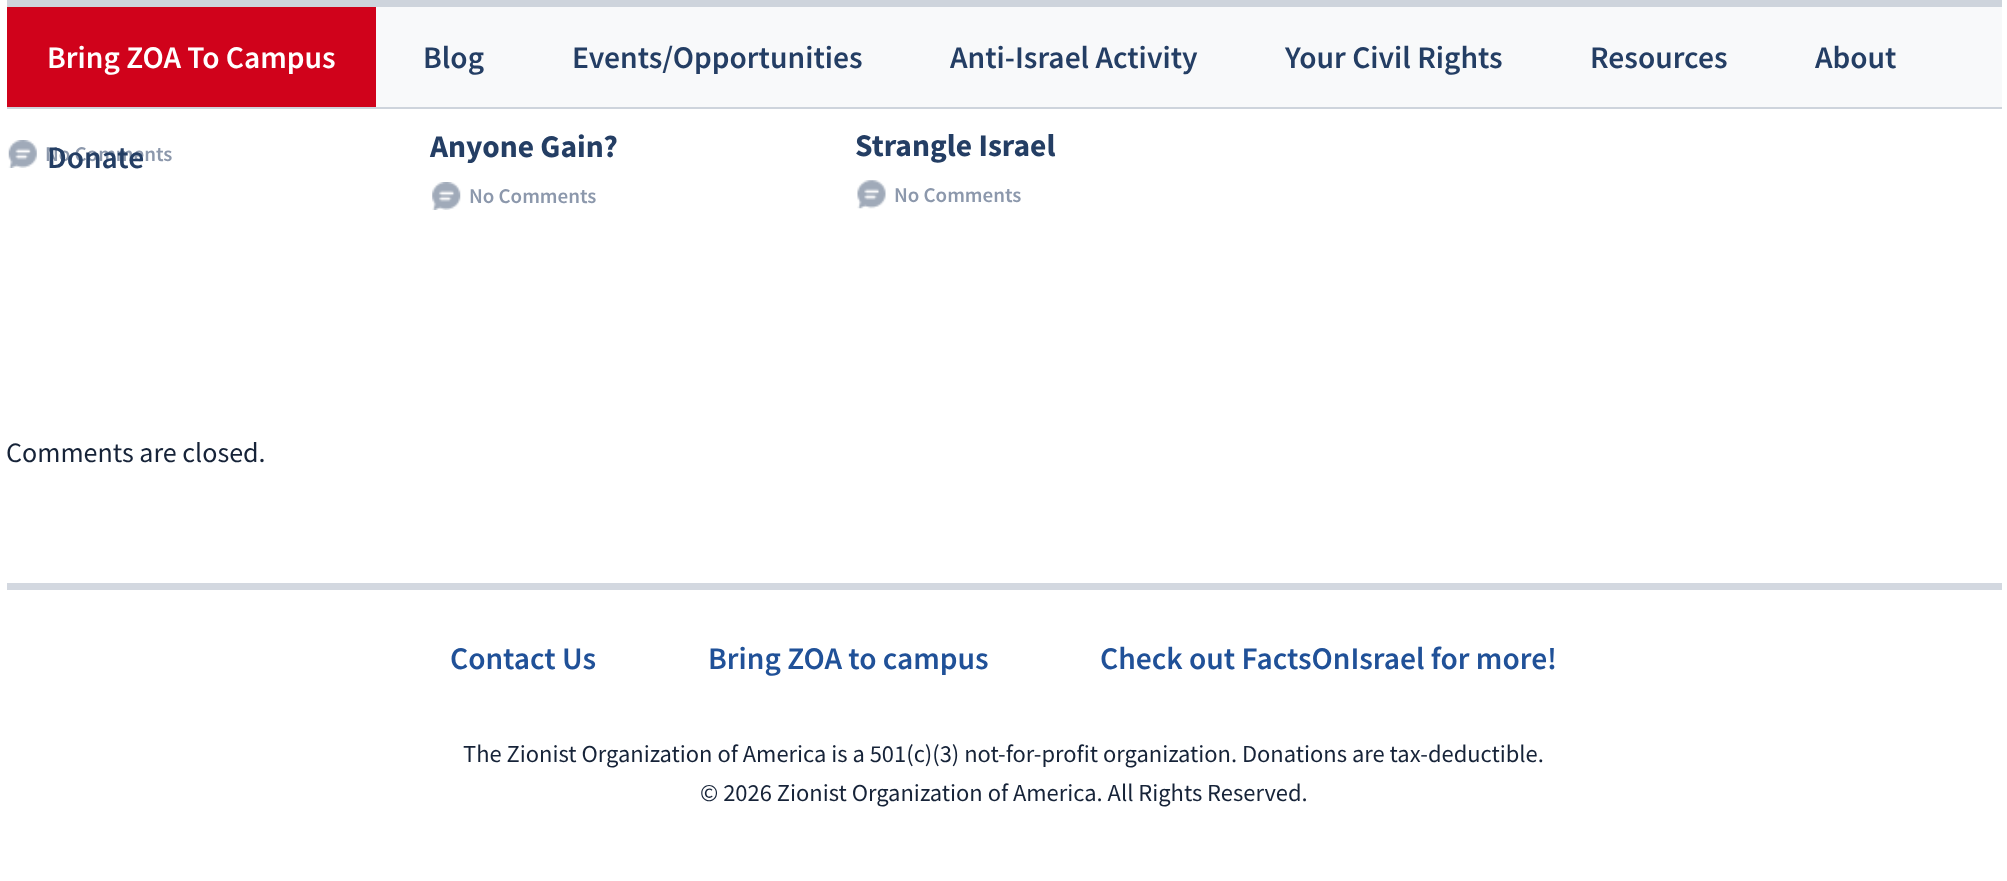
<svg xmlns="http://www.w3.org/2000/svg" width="2007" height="881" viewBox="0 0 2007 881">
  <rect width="100%" height="100%" fill="#ffffff"/>
  <rect x="376" y="7" width="1626" height="100" fill="#f8f9fa"/>
  <rect x="7" y="0" width="1995" height="7" fill="#ced4dc"/>
  <rect x="7" y="107" width="1995" height="2" fill="#ced4dc"/>
  <rect x="7" y="7" width="369" height="100" fill="#d0021b"/>
  <text x="47" y="68" font-family="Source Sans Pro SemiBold" font-size="31.5" font-weight="600" fill="#ffffff">Bring ZOA To Campus</text>
  <text x="423" y="68" font-family="Source Sans Pro SemiBold" font-size="31.5" font-weight="600" fill="#243e64">Blog</text>
  <text x="572" y="68" font-family="Source Sans Pro SemiBold" font-size="31.5" font-weight="600" fill="#243e64">Events/Opportunities</text>
  <text x="950" y="68" font-family="Source Sans Pro SemiBold" font-size="31.5" font-weight="600" fill="#243e64">Anti-Israel Activity</text>
  <text x="1285" y="68" font-family="Source Sans Pro SemiBold" font-size="31.5" font-weight="600" fill="#243e64">Your Civil Rights</text>
  <text x="1590" y="68" font-family="Source Sans Pro SemiBold" font-size="31.5" font-weight="600" fill="#243e64">Resources</text>
  <text x="1815" y="68" font-family="Source Sans Pro SemiBold" font-size="31.5" font-weight="600" fill="#243e64">About</text>
  <text x="45" y="161" font-family="Source Sans Pro SemiBold" font-size="21" font-weight="600" fill="#8c98ac">No Comments</text>
  <text x="47" y="168" font-family="Source Sans Pro SemiBold" font-size="31.5" font-weight="600" fill="#243e64">Donate</text>
  <image x="8" y="140" width="29" height="28" href="img1.png"/>
  <text x="430" y="157" font-family="Source Sans Pro" font-size="31.5" font-weight="bold" fill="#243e64">Anyone Gain?</text>
  <image x="432" y="182" width="29" height="28" href="img2.png"/>
  <text x="469" y="203" font-family="Source Sans Pro SemiBold" font-size="21" font-weight="600" fill="#8c98ac">No Comments</text>
  <text x="855" y="156" font-family="Source Sans Pro" font-size="31.5" font-weight="bold" fill="#243e64">Strangle Israel</text>
  <image x="857" y="180" width="29" height="29" href="img3.png"/>
  <text x="894" y="202" font-family="Source Sans Pro SemiBold" font-size="21" font-weight="600" fill="#8c98ac">No Comments</text>
  <text x="6" y="462" font-family="Source Sans Pro" font-size="28" fill="#162338">Comments are closed.</text>
  <rect x="7" y="583" width="1995" height="7" fill="#d3d8e0"/>
  <text x="450" y="669" font-family="Source Sans Pro SemiBold" font-size="31.5" font-weight="600" fill="#205198">Contact Us</text>
  <text x="708" y="669" font-family="Source Sans Pro SemiBold" font-size="31.5" font-weight="600" fill="#205198">Bring ZOA to campus</text>
  <text x="1100" y="669" font-family="Source Sans Pro SemiBold" font-size="31.5" font-weight="600" fill="#205198">Check out FactsOnIsrael for more!</text>
  <text x="463" y="762" font-family="Source Sans Pro" font-size="24.5" fill="#162338">The Zionist Organization of America is a 501(c)(3) not-for-profit organization. Donations are tax-deductible.</text>
  <text x="700" y="801" font-family="Source Sans Pro" font-size="24.5" fill="#162338">© 2026 Zionist Organization of America. All Rights Reserved.</text>
</svg>
